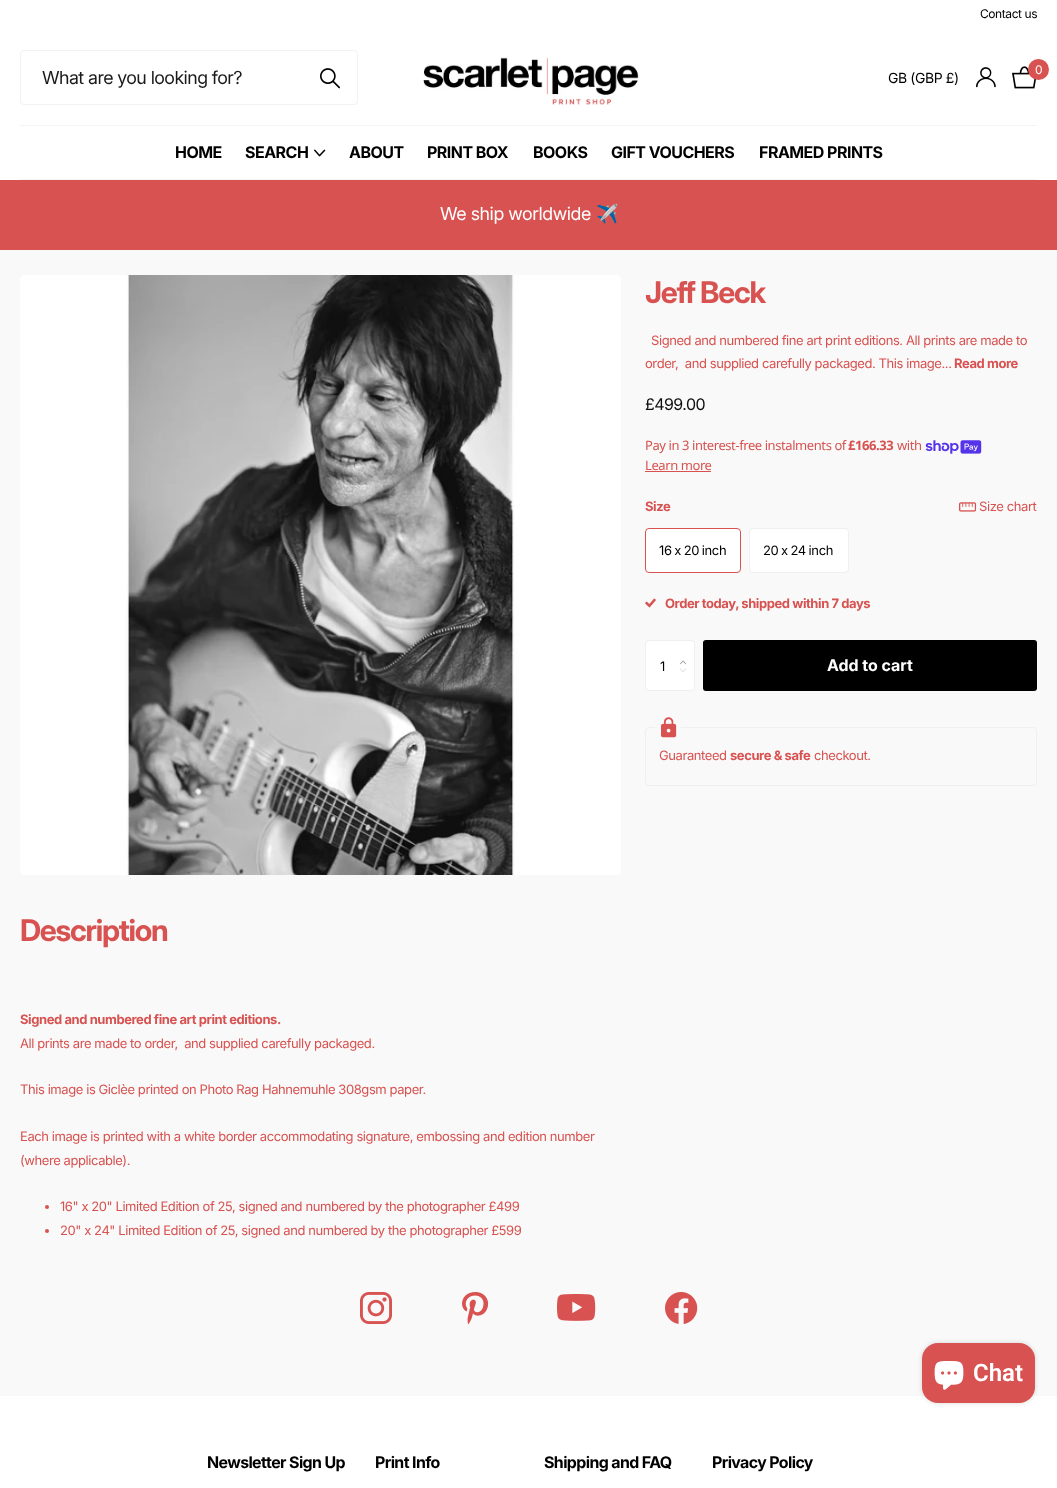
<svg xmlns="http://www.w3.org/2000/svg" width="1057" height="1488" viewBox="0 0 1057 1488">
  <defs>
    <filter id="blur1" x="-50%" y="-200%" width="200%" height="500%"><feGaussianBlur stdDeviation="2.5"/></filter>
  </defs>
  <rect width="100%" height="100%" fill="#f9f9f9"/>
  <rect x="0" y="0" width="1057" height="180" fill="#ffffff"/>
  <text x="980" y="18" font-family="Inter" font-size="12" letter-spacing="-0.42" fill="#000000">Contact us</text>
  <rect x="20.5" y="50.5" width="337" height="54" rx="3.5" fill="none" stroke="#f2f2f2"/>
  <text x="42" y="84" font-family="'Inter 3'" font-size="18" letter-spacing="-0.55" fill="#1a1a1a">What are you looking for?</text>
  <image x="320" y="68" width="20" height="21" href="img1.png"/>
  <image x="423" y="57" width="216" height="48" href="img2.png"/>
  <text x="888" y="83" font-family="Inter" font-size="14" letter-spacing="-0.42" fill="#000000">GB (GBP £)</text>
  <image x="976" y="67" width="20" height="21" href="img3.png"/>
  <image x="1012" y="66" width="24" height="23" href="img4.png"/>
  <circle cx="1038.5" cy="69.5" r="10.5" fill="#d75250"/>
  <text x="1035" y="74" font-family="Inter" font-size="12" fill="#ffffff">0</text>
  <rect x="20" y="125" width="1017" height="1" fill="#f4f4f4"/>
  <rect x="20" y="179" width="1017" height="1" fill="#f4f4f4"/>
  <text x="175" y="158" font-family="Inter" font-size="16" font-weight="bold" letter-spacing="-0.5" fill="#000000">HOME</text>
  <text x="245" y="158" font-family="Inter" font-size="16" font-weight="bold" letter-spacing="-0.5" fill="#000000">SEARCH</text>
  <image x="314" y="149" width="12" height="8" href="img5.png"/>
  <text x="349" y="158" font-family="Inter" font-size="16" font-weight="bold" letter-spacing="-0.5" fill="#000000">ABOUT</text>
  <text x="427" y="158" font-family="Inter" font-size="16" font-weight="bold" letter-spacing="-0.5" fill="#000000">PRINT BOX</text>
  <text x="533" y="158" font-family="Inter" font-size="16" font-weight="bold" letter-spacing="-0.5" fill="#000000">BOOKS</text>
  <text x="611" y="158" font-family="Inter" font-size="16" font-weight="bold" letter-spacing="-0.5" fill="#000000">GIFT VOUCHERS</text>
  <text x="759" y="158" font-family="Inter" font-size="16" font-weight="bold" letter-spacing="-0.5" fill="#000000">FRAMED PRINTS</text>
  <rect x="0" y="180" width="1057" height="70" fill="#d75250"/>
  <text x="440" y="220" font-family="'Inter 3'" font-size="18" letter-spacing="-0.42" fill="#ffffff">We ship worldwide</text>
  <text x="596" y="220" font-family="Noto Color Emoji" font-size="18" letter-spacing="-0.42" fill="#ffffff">✈️</text>
  <text x="645" y="303" font-family="'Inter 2'" font-size="30" font-weight="bold" letter-spacing="-1.25" fill="#d75250">Jeff Beck</text>
  <text x="651" y="345" font-family="Inter" font-size="13" letter-spacing="-0.42" fill="#d75250">Signed and numbered fine art print editions. All prints are made to</text>
  <text x="645" y="368" font-family="Inter" font-size="13" letter-spacing="-0.42" fill="#d75250" xml:space="preserve">order,  and supplied carefully packaged. This image...</text>
  <text x="954" y="368" font-family="'Inter 3'" font-size="13" font-weight="bold" letter-spacing="-0.42" fill="#d75250">Read more</text>
  <text x="645" y="410" font-family="'Inter 2'" font-size="16" letter-spacing="-0.5" fill="#0e0e0e">£499.00</text>
  <text x="645" y="450" font-family="Noto Sans" font-size="13" letter-spacing="-0.42" fill="#d75250">Pay in 3 interest-free instalments of</text>
  <text x="848" y="450" font-family="Noto Sans" font-size="13" font-weight="bold" letter-spacing="-0.42" fill="#d75250">£166.33</text>
  <text x="897" y="450" font-family="Noto Sans" font-size="13" letter-spacing="-0.42" fill="#d75250">with</text>
  <image x="925" y="440" width="57" height="14" href="img6.png"/>
  <text x="645" y="470" font-family="Noto Sans" font-size="13" letter-spacing="-0.42" fill="#d75250">Learn more</text>
  <rect x="645" y="471" width="66" height="1" fill="#d75250"/>
  <text x="645" y="511" font-family="'Inter 3'" font-size="13" font-weight="bold" letter-spacing="-0.4" fill="#d75250">Size</text>
  <image x="959" y="502" width="18" height="10" href="img7.png"/>
  <text x="979" y="511" font-family="Inter" font-size="13" letter-spacing="-0.4" fill="#d75250">Size chart</text>
  <rect x="645.5" y="528.5" width="95" height="44" rx="3.5" fill="#ffffff" stroke="#d75250"/>
  <text x="659" y="555" word-spacing="-0.5" font-family="Inter" font-size="13" letter-spacing="-0.4" fill="#000000">16 x 20 inch</text>
  <rect x="749.5" y="528.5" width="99" height="44" rx="3.5" fill="#ffffff" stroke="#efefef"/>
  <text x="763" y="555" word-spacing="-0.5" font-family="Inter" font-size="13" letter-spacing="-0.4" fill="#000000">20 x 24 inch</text>
  <image x="645" y="598" width="11" height="10" href="img8.png"/>
  <text x="665" y="608" font-family="'Inter 3'" font-size="13" font-weight="bold" letter-spacing="-0.42" fill="#d75250">Order today, shipped within 7 days</text>
  <rect x="645.5" y="640.5" width="49" height="50" rx="3.5" fill="#ffffff" stroke="#efefef"/>
  <text x="660" y="671" font-family="Inter" font-size="13" letter-spacing="-0.4" fill="#000000">1</text>
  <image x="680" y="660" width="6" height="5" href="img9.png"/>
  <image x="680" y="668" width="6" height="4" href="img10.png"/>
  <rect x="703" y="640" width="334" height="51" rx="3" fill="#000000"/>
  <text x="827" y="671" font-family="Inter" font-size="16" font-weight="bold" fill="#ffffff">Add to cart</text>
  <rect x="645.5" y="727.5" width="391" height="58" rx="3.5" fill="none" stroke="#efefef"/>
  <rect x="655" y="727" width="26" height="1" fill="#f9f9f9"/>
  <image x="661" y="717" width="16" height="21" href="img11.png"/>
  <text x="659" y="760" font-family="Inter" font-size="13" letter-spacing="-0.42" fill="#d75250">Guaranteed</text>
  <text x="730" y="760" font-family="'Inter 3'" font-size="13" font-weight="bold" letter-spacing="-0.42" fill="#d75250">secure &amp; safe</text>
  <text x="814" y="760" font-family="Inter" font-size="13" letter-spacing="-0.42" fill="#d75250">checkout.</text>
  <image x="20" y="275" width="601" height="600" href="img12.png"/>
  <text x="20" y="941" font-family="'Inter 2'" font-size="30" font-weight="bold" letter-spacing="-1.25" fill="#d75250">Description</text>
  <text x="20" y="1024" font-family="'Inter 3'" font-size="13" font-weight="bold" letter-spacing="-0.42" fill="#d75250">Signed and numbered fine art print editions.</text>
  <text x="20" y="1048" font-family="Inter" font-size="13" letter-spacing="-0.42" fill="#d75250" xml:space="preserve">All prints are made to order,  and supplied carefully packaged.</text>
  <text x="20" y="1094" font-family="Inter" font-size="13" letter-spacing="-0.42" fill="#d75250">This image is Giclèe printed on Photo Rag Hahnemuhle 308gsm paper.</text>
  <text x="20" y="1141" font-family="Inter" font-size="13" letter-spacing="-0.42" fill="#d75250">Each image is printed with a white border accommodating signature, embossing and edition number</text>
  <text x="20" y="1165" font-family="Inter" font-size="13" letter-spacing="-0.42" fill="#d75250">(where applicable).</text>
  <circle cx="47" cy="1207" r="2" fill="#d75250"/>
  <text x="60" y="1211" font-family="Inter" font-size="13" letter-spacing="-0.42" fill="#d75250">16" x 20" Limited Edition of 25, signed and numbered by the photographer £499</text>
  <circle cx="47" cy="1231" r="2" fill="#d75250"/>
  <text x="60" y="1235" font-family="Inter" font-size="13" letter-spacing="-0.42" fill="#d75250">20" x 24" Limited Edition of 25, signed and numbered by the photographer £599</text>
  <image x="360" y="1292" width="32" height="32" href="img13.png"/>
  <image x="462" y="1292" width="27" height="33" href="img14.png"/>
  <image x="557" y="1294" width="39" height="27" href="img15.png"/>
  <image x="665" y="1292" width="33" height="33" href="img16.png"/>
  <rect x="0" y="1396" width="1057" height="92" fill="#ffffff"/>
  <text x="207" y="1468" font-family="Inter" font-size="16" font-weight="bold" letter-spacing="-0.6" fill="#000000">Newsletter Sign Up</text>
  <text x="375" y="1468" font-family="Inter" font-size="16" font-weight="bold" letter-spacing="-0.6" fill="#000000">Print Info</text>
  <text x="544" y="1468" font-family="Inter" font-size="16" font-weight="bold" letter-spacing="-0.6" fill="#000000">Shipping and FAQ</text>
  <text x="712" y="1468" font-family="Inter" font-size="16" font-weight="bold" letter-spacing="-0.6" fill="#000000">Privacy Policy</text>
  <rect x="922" y="1343" width="113" height="60" rx="16" fill="#000000" fill-opacity="0.15" filter="url(#blur1)"/>
  <rect x="922" y="1343" width="113" height="60" rx="16" fill="#d75250"/>
  <image x="934" y="1361" width="30" height="29" href="img17.png"/>
  <text x="973" y="1381" font-family="Roboto" font-size="24" font-weight="600" fill="#ffffff">Chat</text>
</svg>
